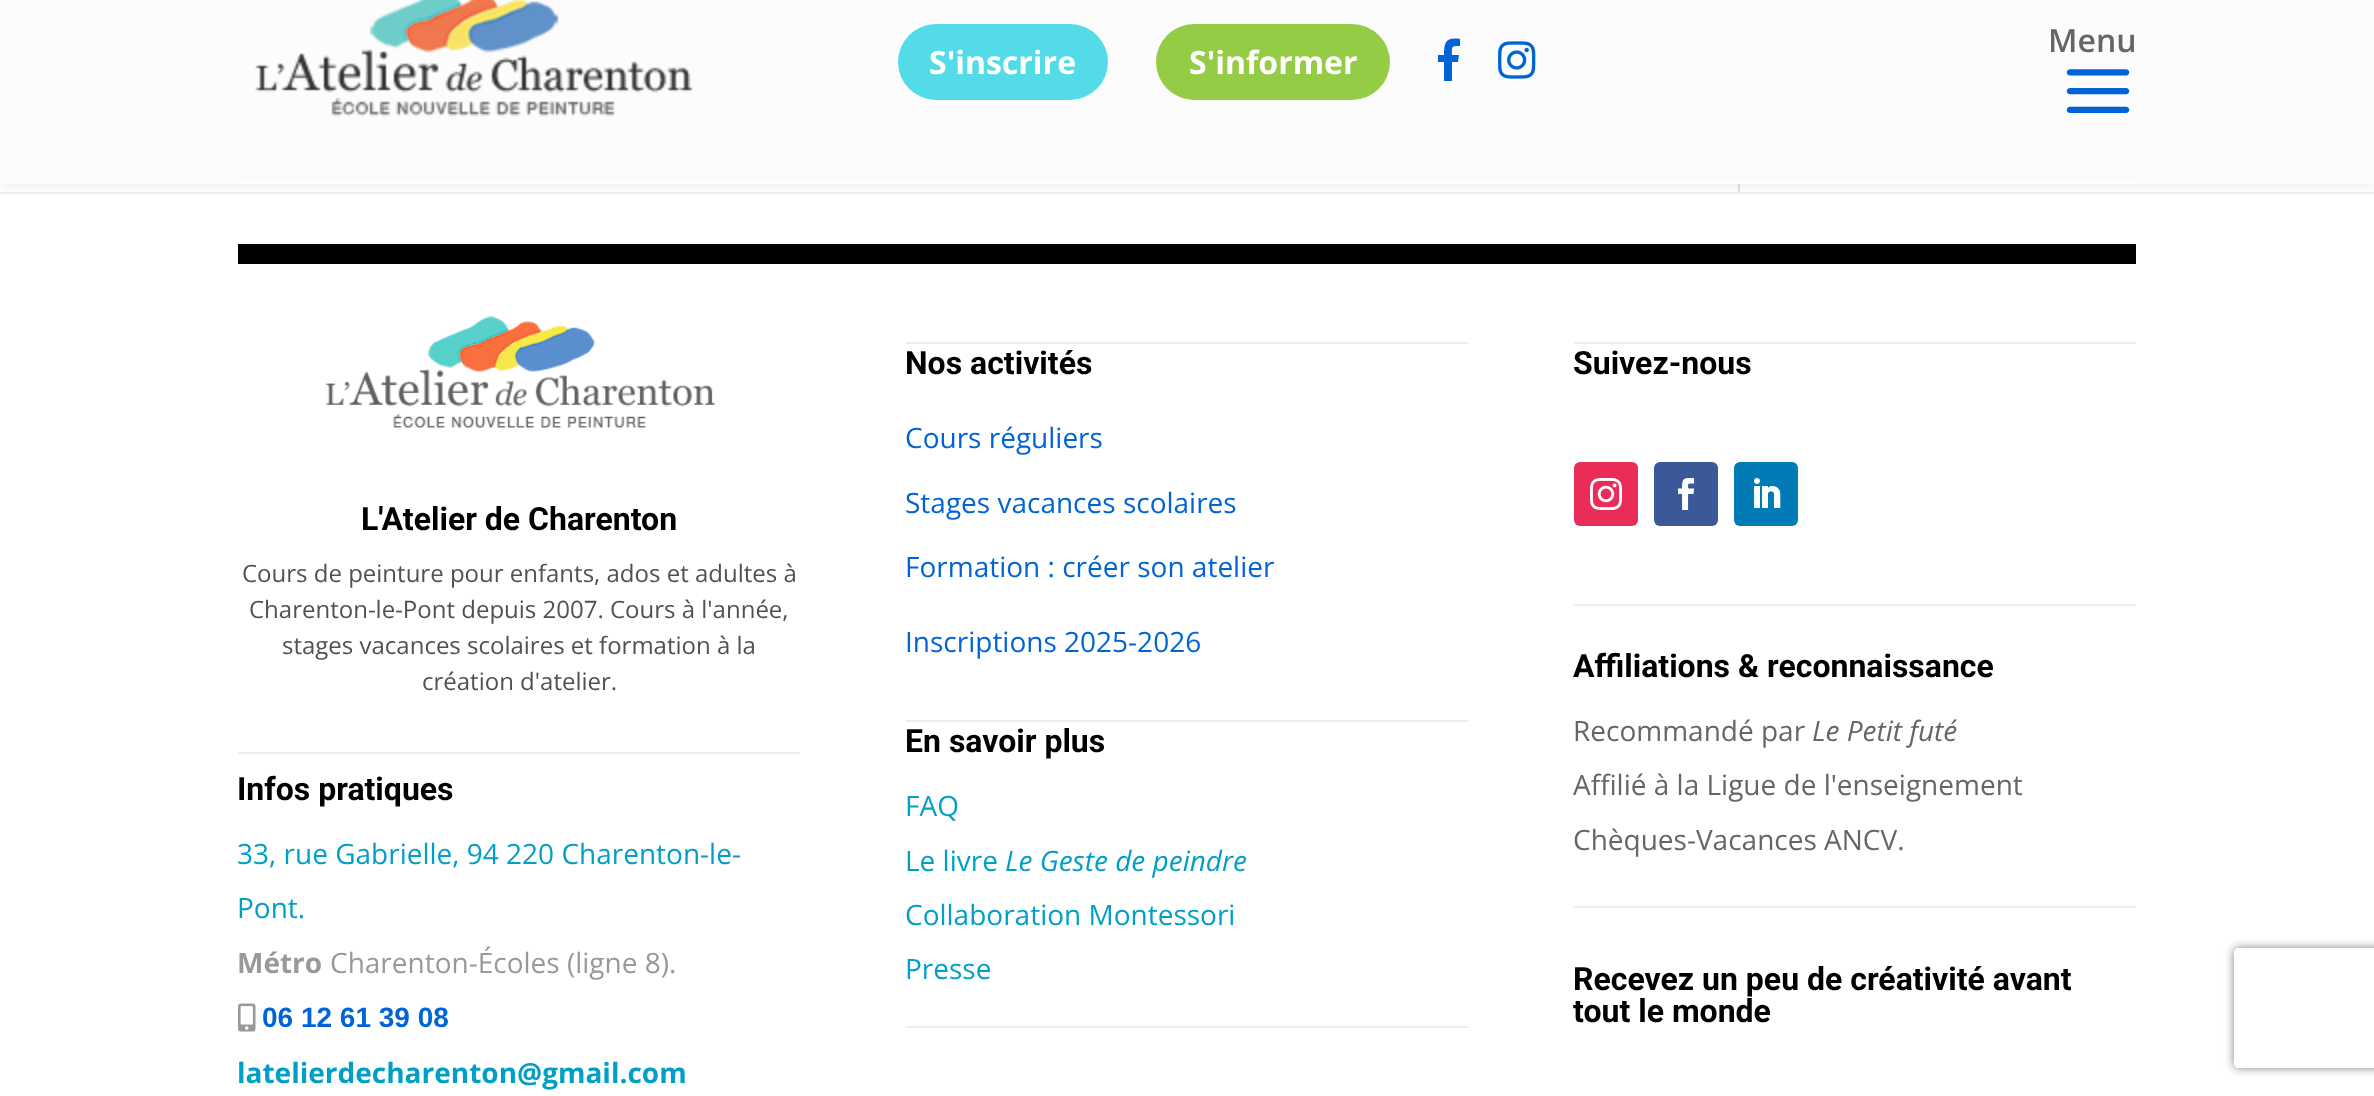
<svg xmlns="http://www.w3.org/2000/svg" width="2374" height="1096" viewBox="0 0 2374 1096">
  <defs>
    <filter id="blur1" x="-50%" y="-200%" width="200%" height="500%"><feGaussianBlur stdDeviation="7"/></filter>
    <clipPath id="clip1"><path d="M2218 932H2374V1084H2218ZM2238 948H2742C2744 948 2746 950 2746 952V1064C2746 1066 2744 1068 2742 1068H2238C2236 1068 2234 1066 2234 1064V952C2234 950 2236 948 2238 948Z" clip-rule="evenodd"/></clipPath>
    <filter id="blur2" x="-50%" y="-200%" width="200%" height="500%"><feGaussianBlur stdDeviation="5"/></filter>
  </defs>
  <rect width="100%" height="100%" fill="#ffffff"/>
  <rect x="1738" y="184" width="2" height="8" fill="#e2e2e2"/>
  <rect x="0" y="192" width="2374" height="2" fill="#eeeeee"/>
  <rect x="0" y="0" width="2374" height="184" fill="#000000" fill-opacity="0.1" filter="url(#blur1)"/>
  <rect x="0" y="0" width="2374" height="184" fill="#fcfcfc"/>
  <text x="2048" y="52" font-family="Open Sans" font-size="32" font-weight="600" fill="#666666">Menu</text>
  <image x="2066" y="69" width="64" height="44" href="img1.png"/>
  <image x="255" y="0" width="438" height="117" href="img2.png"/>
  <rect x="898" y="24" width="210" height="76" rx="38" fill="#53dbe7"/>
  <text x="929" y="74" font-family="Open Sans" font-size="32" font-weight="bold" fill="#ffffff">S'inscrire</text>
  <rect x="1156" y="24" width="234" height="76" rx="38" fill="#94cc45"/>
  <text x="1189" y="74" font-family="Open Sans" font-size="32" font-weight="bold" fill="#ffffff">S'informer</text>
  <path d="M1444 81V62H1438V55H1444C1444 42 1446 37 1460 39V46C1451 46 1452 46 1452 55H1459L1458 62H1452V81Z" fill="#0064d7"/>
  <image x="1498" y="41" width="38" height="38" href="img3.png"/>
  <rect x="238" y="182" width="1898" height="2" fill="#ffffff"/>
  <rect x="238" y="244" width="1898" height="20" fill="#000000"/>
  <image x="325" y="315" width="390" height="113" href="img4.png"/>
  <text x="361" y="530" font-family="Roboto" font-size="32" font-weight="bold" fill="#000000">L'Atelier de Charenton</text>
  <text x="242" y="582" font-family="Open Sans" font-size="24" fill="#515151">Cours de peinture pour enfants, ados et adultes à</text>
  <text x="249" y="618" font-family="Open Sans" font-size="24" fill="#515151">Charenton-le-Pont depuis 2007. Cours à l'année,</text>
  <text x="282" y="654" font-family="Open Sans" font-size="24" fill="#515151">stages vacances scolaires et formation à la</text>
  <text x="422" y="690" font-family="Open Sans" font-size="24" fill="#515151">création d'atelier.</text>
  <rect x="238" y="752" width="562" height="2" fill="#eeeeee"/>
  <text x="237" y="800" font-family="Roboto" font-size="32" font-weight="bold" fill="#000000">Infos pratiques</text>
  <text x="237" y="864" font-family="Open Sans" font-size="28" fill="#009fc6">33, rue Gabrielle, 94 220 Charenton-le-</text>
  <text x="237" y="918" font-family="Open Sans" font-size="28" fill="#009fc6">Pont.</text>
  <text x="237" y="973" font-family="Open Sans" font-size="28" font-weight="bold" fill="#999999">Métro</text>
  <text x="330" y="973" font-family="Open Sans" font-size="28" fill="#999999">Charenton-Écoles (ligne 8).</text>
  <image x="238" y="1003" width="18" height="29" href="img5.png"/>
  <text x="262" y="1027" font-family="Liberation Sans" font-size="28" font-weight="bold" fill="#0064d7">06 12 61 39 08</text>
  <text x="237" y="1083" font-family="Open Sans" font-size="28" font-weight="bold" fill="#009fc6">latelierdecharenton@gmail.com</text>
  <rect x="906" y="342" width="562" height="2" fill="#eeeeee"/>
  <text x="905" y="374" font-family="Roboto" font-size="32" font-weight="bold" fill="#000000">Nos activités</text>
  <text x="905" y="448" font-family="Open Sans" font-size="28" fill="#0064d7">Cours réguliers</text>
  <text x="905" y="513" font-family="Open Sans" font-size="28" fill="#0064d7">Stages vacances scolaires</text>
  <text x="905" y="577" font-family="Open Sans" font-size="28" fill="#0064d7">Formation : créer son atelier</text>
  <text x="905" y="652" font-family="Open Sans" font-size="28" fill="#0064d7">Inscriptions 2025-2026</text>
  <rect x="906" y="720" width="562" height="2" fill="#eeeeee"/>
  <text x="905" y="752" font-family="Roboto" font-size="32" font-weight="bold" fill="#000000">En savoir plus</text>
  <text x="905" y="816" font-family="Open Sans" font-size="28" fill="#009fc6">FAQ</text>
  <text x="905" y="871" font-family="Open Sans" font-size="28" fill="#009fc6">Le livre</text>
  <text x="1005" y="871" font-family="Open Sans" font-size="28" font-style="italic" fill="#009fc6">Le Geste de peindre</text>
  <text x="905" y="925" font-family="Open Sans" font-size="28" fill="#009fc6">Collaboration Montessori</text>
  <text x="905" y="979" font-family="Open Sans" font-size="28" fill="#009fc6">Presse</text>
  <rect x="906" y="1026" width="562" height="2" fill="#eeeeee"/>
  <rect x="1574" y="342" width="562" height="2" fill="#eeeeee"/>
  <text x="1573" y="374" font-family="Roboto" font-size="32" font-weight="bold" fill="#000000">Suivez-nous</text>
  <rect x="1574" y="462" width="64" height="64" rx="6" fill="#ea2c59"/>
  <image x="1590" y="478" width="32" height="32" href="img6.png"/>
  <rect x="1654" y="462" width="64" height="64" rx="6" fill="#3b5998"/>
  <image x="1678" y="478" width="17" height="32" href="img7.png"/>
  <rect x="1734" y="462" width="64" height="64" rx="6" fill="#007bb6"/>
  <image x="1754" y="478" width="27" height="30" href="img8.png"/>
  <rect x="1574" y="604" width="562" height="2" fill="#eeeeee"/>
  <text x="1573" y="677" font-family="Roboto" font-size="32" font-weight="bold" fill="#000000">Affiliations &amp; reconnaissance</text>
  <text x="1573" y="741" font-family="Open Sans" font-size="28" fill="#666666">Recommandé par</text>
  <text x="1812" y="741" font-family="Open Sans" font-size="28" font-style="italic" fill="#666666">Le Petit futé</text>
  <text x="1573" y="795" font-family="Open Sans" font-size="28" fill="#666666">Affilié à la Ligue de l'enseignement</text>
  <text x="1573" y="850" font-family="Open Sans" font-size="28" fill="#666666">Chèques-Vacances ANCV.</text>
  <rect x="1574" y="906" width="562" height="2" fill="#eeeeee"/>
  <text x="1573" y="990" font-family="Roboto" font-size="32" font-weight="bold" fill="#000000">Recevez un peu de créativité avant</text>
  <text x="1573" y="1022" font-family="Roboto" font-size="32" font-weight="bold" fill="#000000">tout le monde</text>
  <g clip-path="url(#clip1)">
    <rect x="2234" y="948" width="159" height="120" rx="4" fill="#808080" filter="url(#blur2)"/>
  </g>
</svg>
